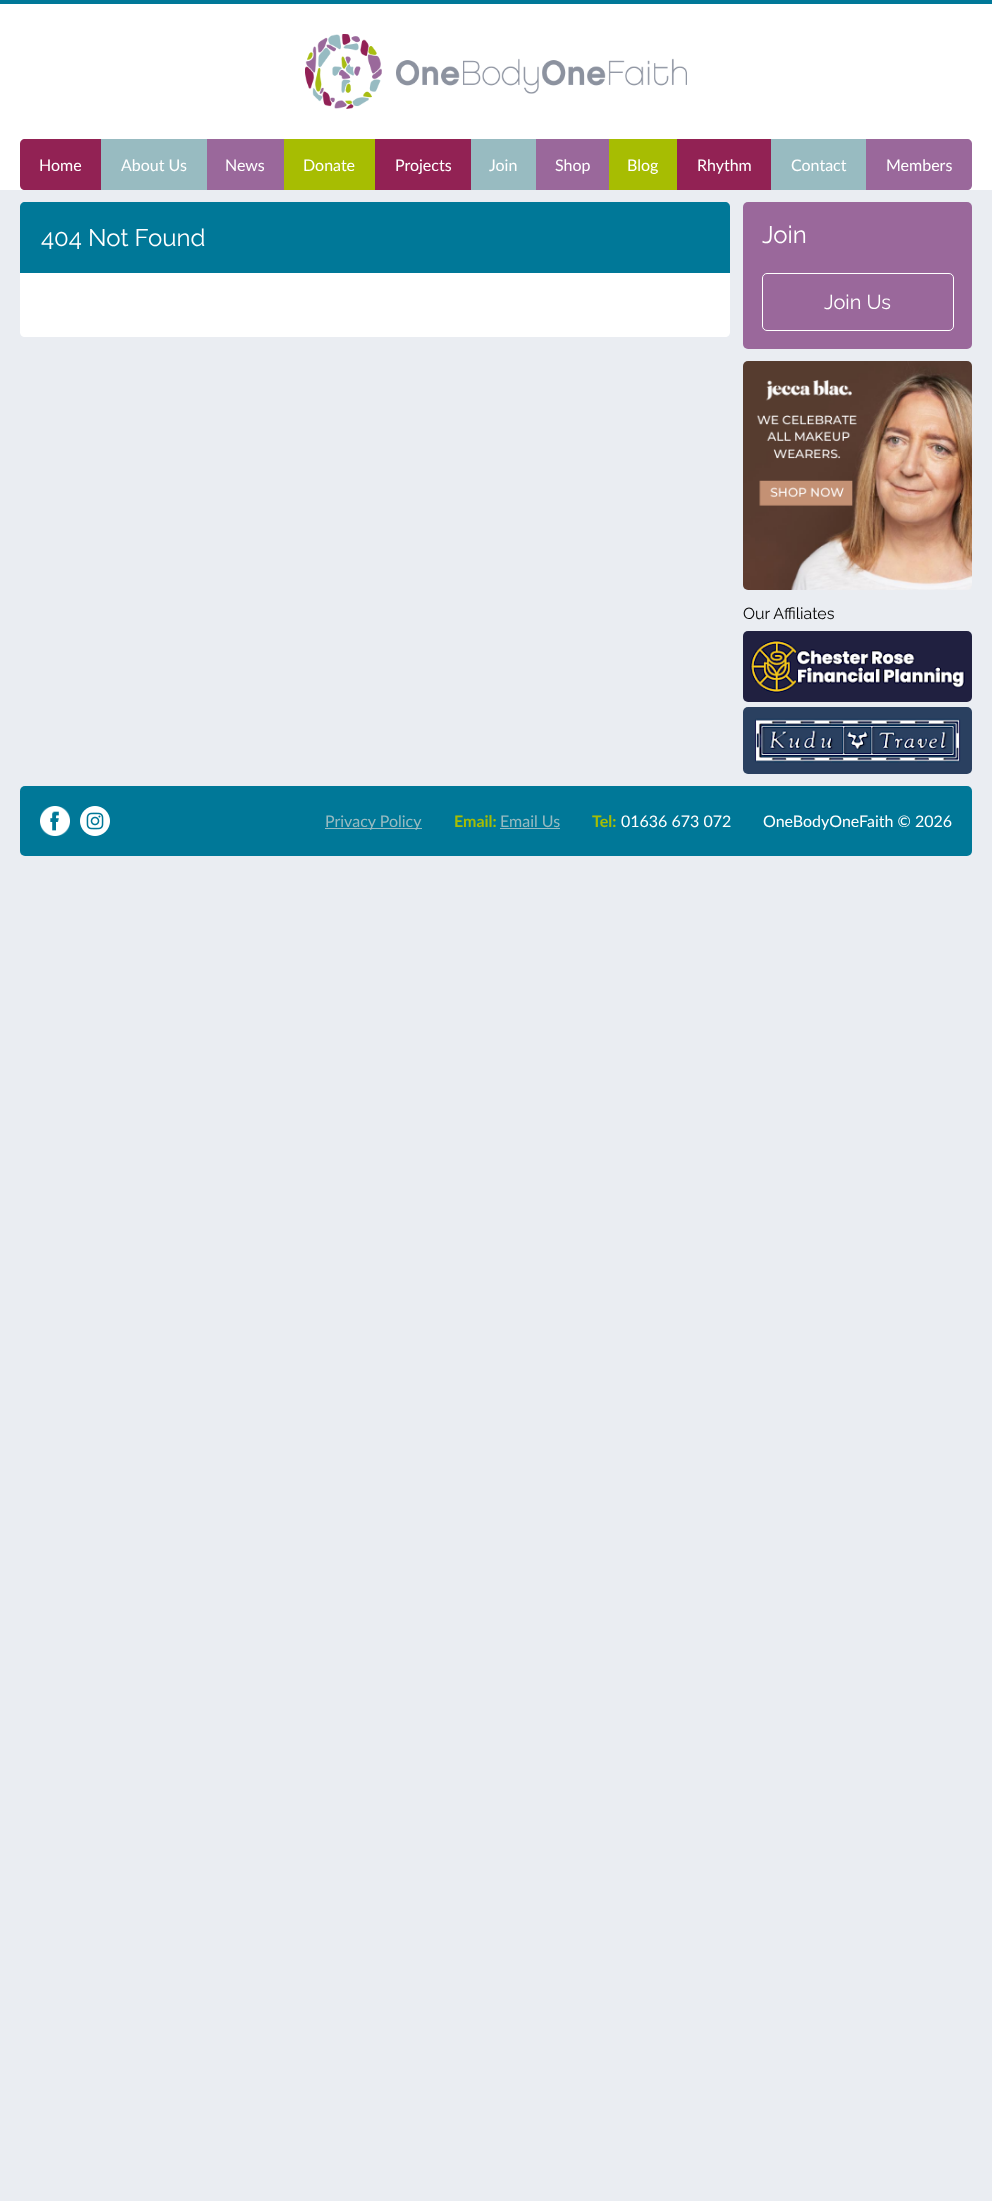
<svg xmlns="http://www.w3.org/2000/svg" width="992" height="2201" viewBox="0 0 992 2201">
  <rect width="100%" height="100%" fill="#eaedf2"/>
  <rect x="0" y="4" width="992" height="186" fill="#ffffff"/>
  <rect x="0" y="0" width="992" height="4" fill="#007898"/>
  <image x="305" y="34" width="382" height="75" href="img1.png"/>
  <path d="M25 139H101V190H25C22 190 20 188 20 185V144C20 141 22 139 25 139Z" fill="#922254"/>
  <text x="39" y="171" font-family="Lato" font-size="16" fill="#ffffff">Home</text>
  <rect x="101" y="139" width="106" height="51" fill="#98bbc1"/>
  <text x="121" y="171" font-family="Lato" font-size="16" fill="#ffffff">About Us</text>
  <rect x="207" y="139" width="77" height="51" fill="#9a689b"/>
  <text x="225" y="171" font-family="Lato" font-size="16" fill="#ffffff">News</text>
  <rect x="284" y="139" width="91" height="51" fill="#a7bd02"/>
  <text x="303" y="171" font-family="Lato" font-size="16" fill="#ffffff">Donate</text>
  <rect x="375" y="139" width="96" height="51" fill="#922254"/>
  <text x="395" y="171" font-family="Lato" font-size="16" fill="#ffffff">Projects</text>
  <rect x="471" y="139" width="65" height="51" fill="#98bbc1"/>
  <text x="489" y="171" font-family="Lato" font-size="16" fill="#ffffff">Join</text>
  <rect x="536" y="139" width="73" height="51" fill="#9a689b"/>
  <text x="555" y="171" font-family="Lato" font-size="16" fill="#ffffff">Shop</text>
  <rect x="609" y="139" width="68" height="51" fill="#a7bd02"/>
  <text x="627" y="171" font-family="Lato" font-size="16" fill="#ffffff">Blog</text>
  <rect x="677" y="139" width="94" height="51" fill="#922254"/>
  <text x="697" y="171" font-family="Lato" font-size="16" fill="#ffffff">Rhythm</text>
  <rect x="771" y="139" width="95" height="51" fill="#98bbc1"/>
  <text x="791" y="171" font-family="Lato" font-size="16" fill="#ffffff">Contact</text>
  <path d="M866 139H967C970 139 972 141 972 144V185C972 188 970 190 967 190H866Z" fill="#9a689b"/>
  <text x="886" y="171" font-family="Lato" font-size="16" fill="#ffffff">Members</text>
  <path d="M25 202H725C728 202 730 204 730 207V273H20V207C20 204 22 202 25 202Z" fill="#007898"/>
  <text x="41" y="246" font-family="Raleway" font-size="24" fill="#ffffff">404 Not Found</text>
  <path d="M20 273H730V332C730 335 728 337 725 337H25C22 337 20 335 20 332Z" fill="#ffffff"/>
  <rect x="743" y="202" width="229" height="147" rx="5" fill="#9a689b"/>
  <text x="762" y="243" font-family="Raleway" font-size="24" fill="#ffffff">Join</text>
  <rect x="762.5" y="273.5" width="191" height="57" rx="4.5" fill="none" stroke="#ffffff"/>
  <text x="824" y="309" font-family="Raleway" font-size="20" fill="#ffffff">Join Us</text>
  <image x="743" y="361" width="229" height="229" href="img2.png"/>
  <text x="743" y="619" font-family="Raleway" font-size="16" fill="#000000">Our Affiliates</text>
  <image x="743" y="631" width="229" height="71" href="img3.png"/>
  <image x="743" y="707" width="229" height="67" href="img4.png"/>
  <rect x="20" y="786" width="952" height="70" rx="5" fill="#007898"/>
  <image x="40" y="806" width="30" height="30" href="img5.png"/>
  <image x="80" y="806" width="30" height="30" href="img6.png"/>
  <rect x="325" y="828" width="97" height="1" fill="#98bbc1"/>
  <text x="325" y="827" font-family="Lato" font-size="16" fill="#98bbc1">Privacy Policy</text>
  <text x="454" y="827" font-family="Lato" font-size="16" font-weight="bold" fill="#a7bd02">Email:</text>
  <text x="500" y="827" font-family="Lato" font-size="16" fill="#98bbc1">Email Us</text>
  <rect x="500" y="828" width="60" height="1" fill="#98bbc1"/>
  <text x="592" y="827" font-family="Lato" font-size="16" font-weight="bold" fill="#a7bd02">Tel:</text>
  <text x="621" y="827" font-family="Lato" font-size="16" fill="#ffffff">01636 673 072</text>
  <text x="763" y="827" font-family="Lato" font-size="16" fill="#ffffff">OneBodyOneFaith © 2026</text>
</svg>
